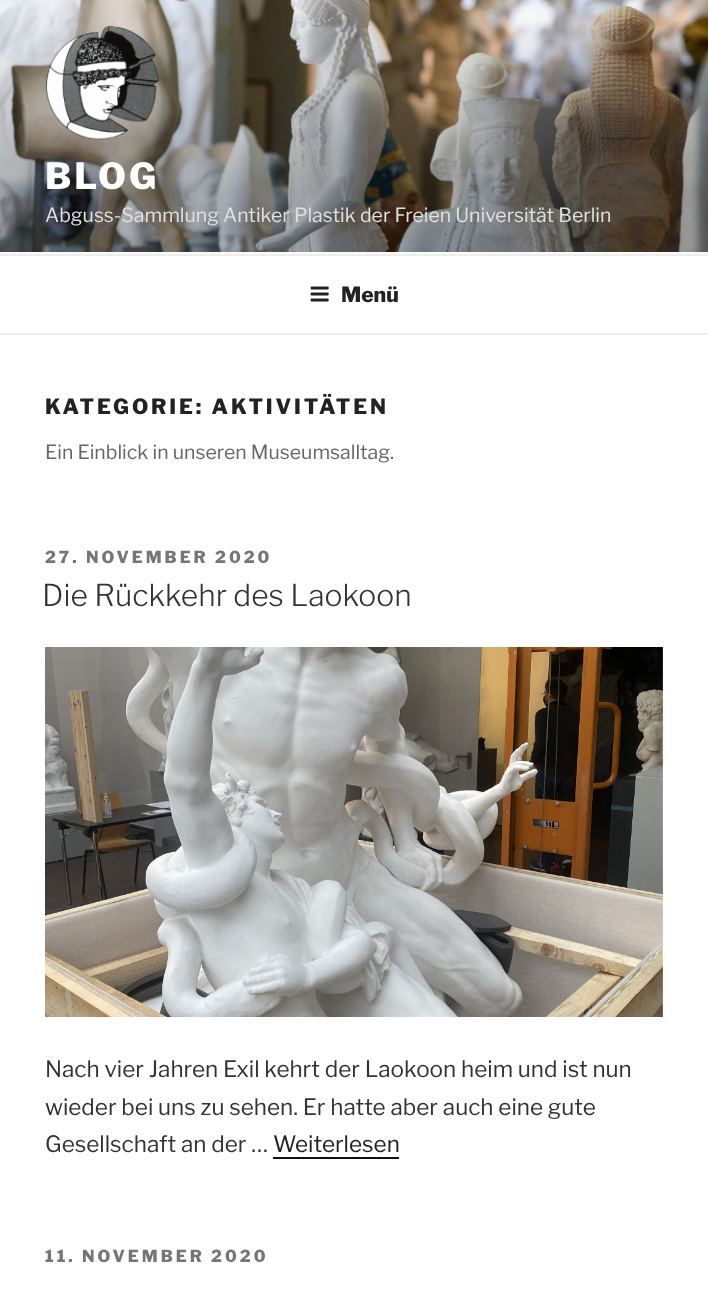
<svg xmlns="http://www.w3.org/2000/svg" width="708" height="1291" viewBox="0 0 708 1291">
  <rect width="100%" height="100%" fill="#ffffff"/>
  <rect x="0" y="252" width="708" height="2" fill="#fafafa"/>
  <image x="0" y="0" width="708" height="252" href="img1.png"/>
  <image x="45" y="25" width="115" height="115" href="img2.png"/>
  <text x="45" y="189" font-family="Libre Franklin" font-size="36" font-weight="100" letter-spacing="3" fill="#ffffff">BLOG</text>
  <text x="45" y="222" font-family="'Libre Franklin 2'" font-size="19.5" font-weight="100" fill="#e0e0e0">Abguss-Sammlung Antiker Plastik der Freien Universität Berlin</text>
  <rect x="0" y="254" width="708" height="2" fill="#eeeeee"/>
  <rect x="0" y="333" width="708" height="2" fill="#eeeeee"/>
  <image x="310" y="286" width="19" height="16" href="img3.png"/>
  <text x="341" y="302" font-family="Libre Franklin" font-size="21" font-weight="100" fill="#222222">Menü</text>
  <text x="45" y="414" font-family="Libre Franklin" font-size="21" font-weight="100" letter-spacing="2.9" fill="#222222">KATEGORIE: AKTIVITÄTEN</text>
  <text x="45" y="459" font-family="'Libre Franklin 2'" font-size="19.5" font-weight="100" fill="#666666">Ein Einblick in unseren Museumsalltag.</text>
  <text x="45" y="563" font-family="Libre Franklin" font-size="16.5" font-weight="100" letter-spacing="3" fill="#767676">27. NOVEMBER 2020</text>
  <text x="42" y="606" font-family="'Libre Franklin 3'" font-size="30" font-weight="100" fill="#333333">Die Rückkehr des Laokoon</text>
  <image x="45" y="647" width="618" height="370" href="img4.png"/>
  <text x="45" y="1077" font-family="'Libre Franklin 2'" font-size="22.5" font-weight="100" fill="#333333">Nach vier Jahren Exil kehrt der Laokoon heim und ist nun</text>
  <text x="45" y="1115" font-family="'Libre Franklin 2'" font-size="22.5" font-weight="100" fill="#333333">wieder bei uns zu sehen. Er hatte aber auch eine gute</text>
  <text x="45" y="1152" font-family="'Libre Franklin 2'" font-size="22.5" font-weight="100" fill="#333333">Gesellschaft an der …</text>
  <text x="273" y="1152" font-family="'Libre Franklin 2'" font-size="22.5" font-weight="100" fill="#222222">Weiterlesen</text>
  <rect x="273" y="1157" width="126" height="2" fill="#0f0f0f"/>
  <text x="45" y="1262" font-family="Libre Franklin" font-size="16.5" font-weight="100" letter-spacing="3" fill="#767676">11. NOVEMBER 2020</text>
</svg>
